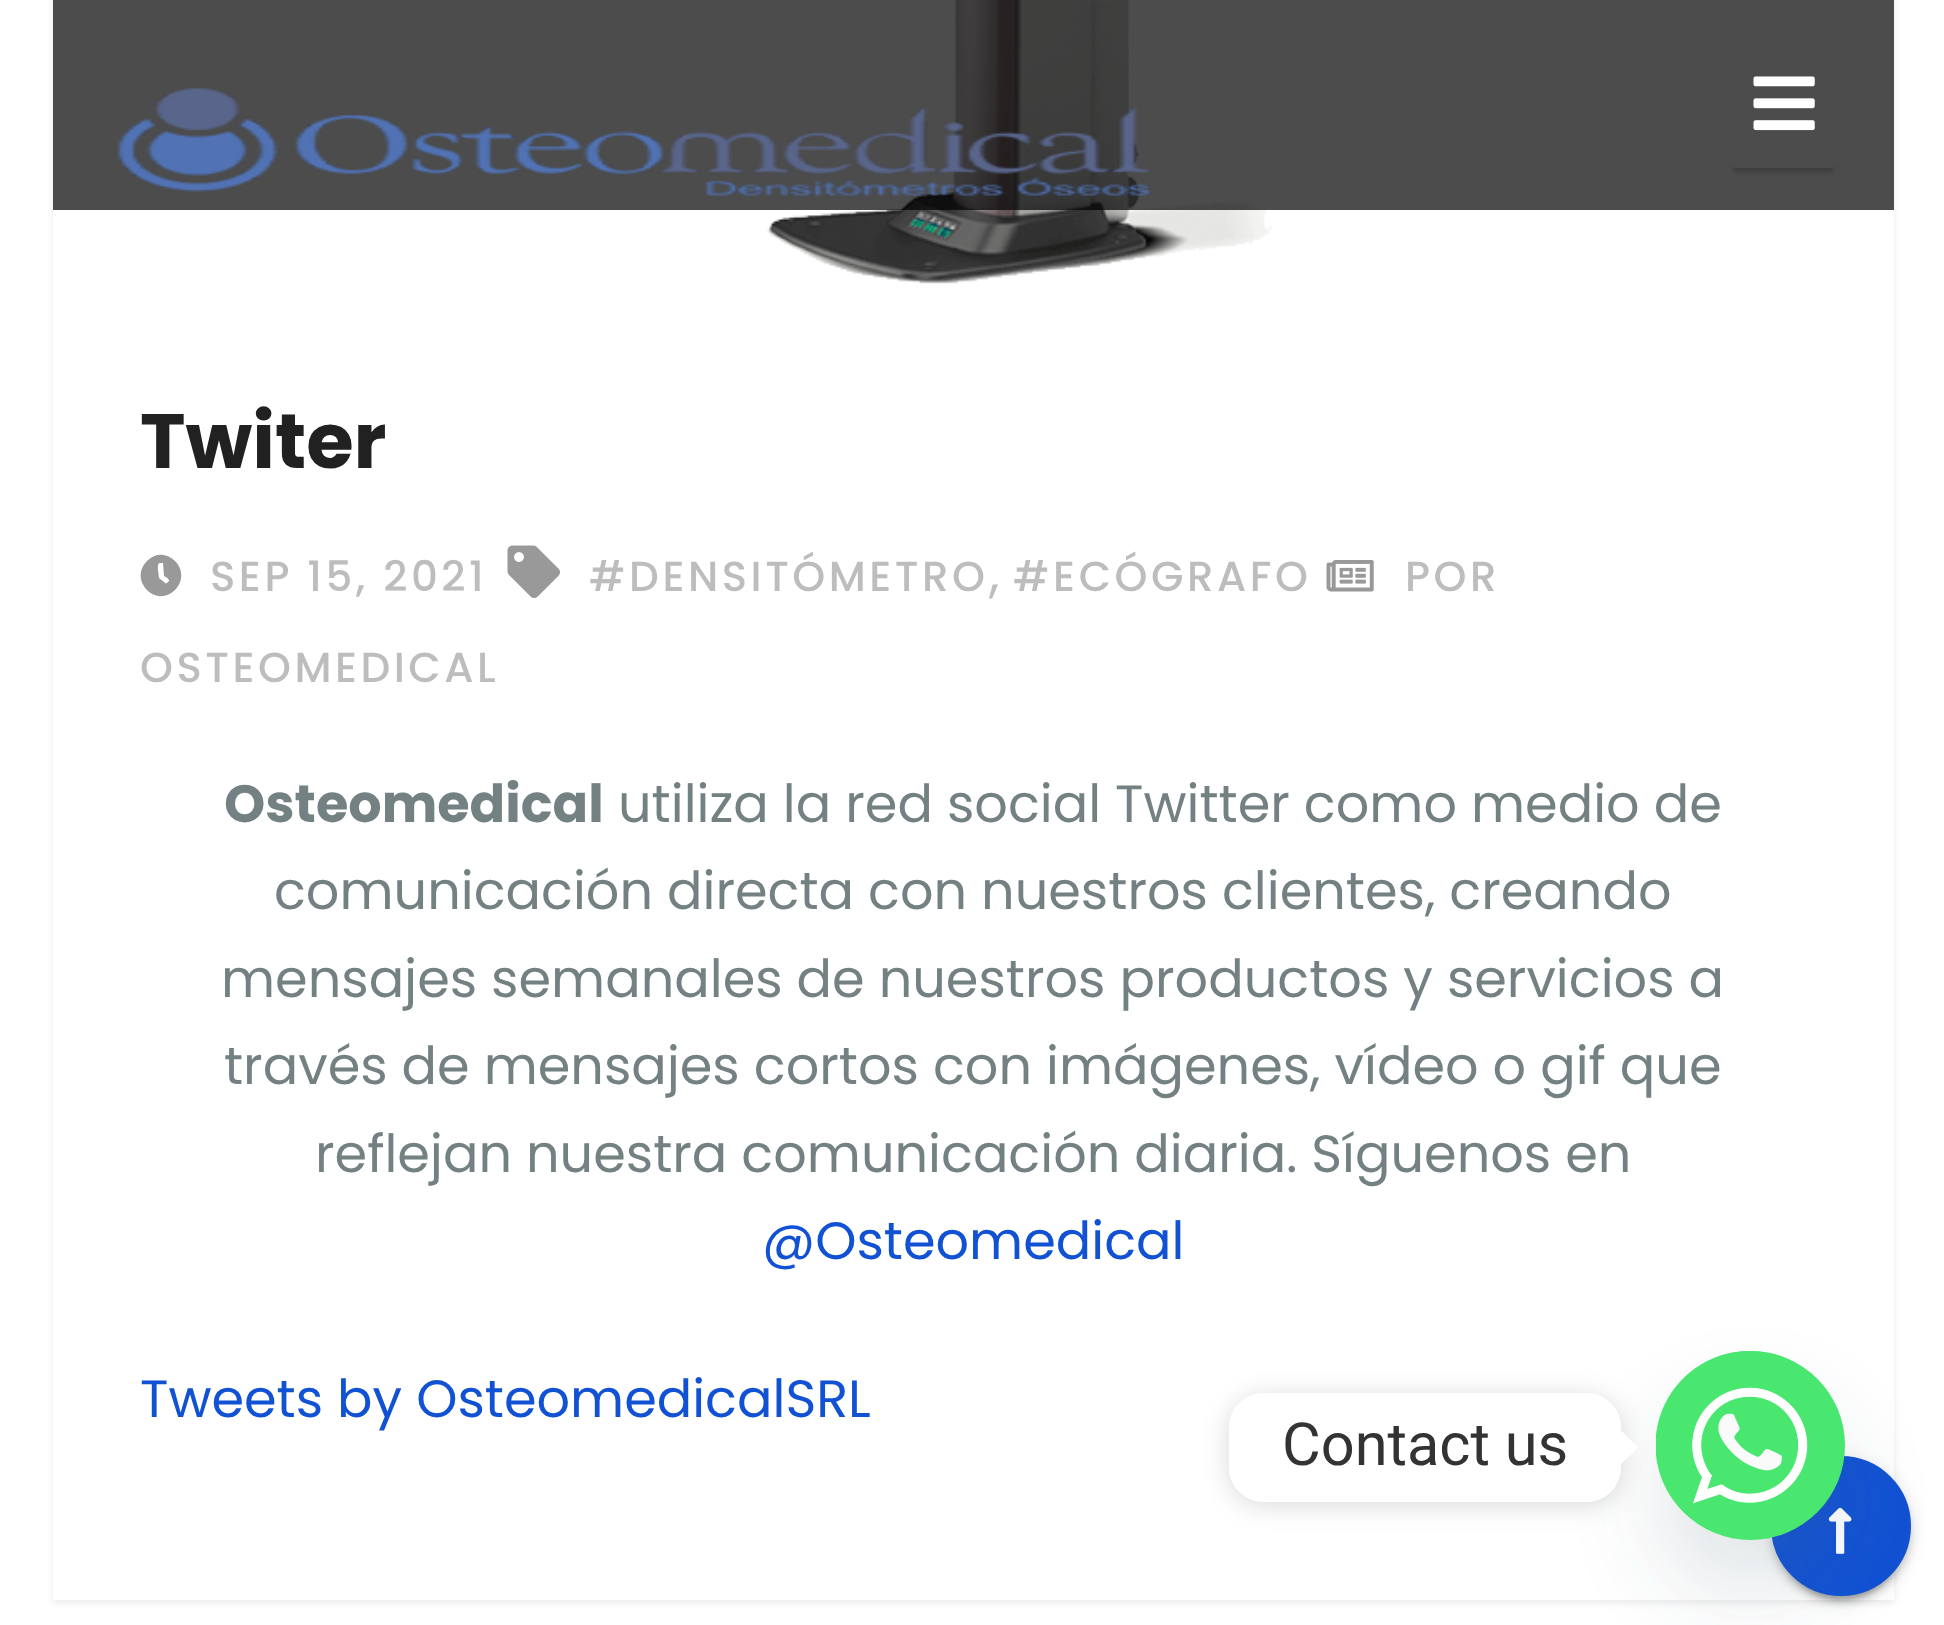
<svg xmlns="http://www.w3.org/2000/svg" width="1944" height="1625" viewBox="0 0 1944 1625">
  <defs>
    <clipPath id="clip1"><path d="M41 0H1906V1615H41ZM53-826H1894V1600H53Z" clip-rule="evenodd"/></clipPath>
    <filter id="blur1" x="-50%" y="-200%" width="200%" height="500%"><feGaussianBlur stdDeviation="3.5"/></filter>
    <clipPath id="clip2"><path d="M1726 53H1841V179H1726ZM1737 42H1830C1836 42 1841 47 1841 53V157C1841 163 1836 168 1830 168H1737C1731 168 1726 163 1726 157V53C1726 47 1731 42 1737 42Z" clip-rule="evenodd"/></clipPath>
    <filter id="blur2" x="-50%" y="-200%" width="200%" height="500%"><feGaussianBlur stdDeviation="2"/></filter>
    <filter id="blur3" x="-50%" y="-200%" width="200%" height="500%"><feGaussianBlur stdDeviation="9"/></filter>
    <filter id="blur4" x="-50%" y="-200%" width="200%" height="500%"><feGaussianBlur stdDeviation="42"/></filter>
    <clipPath id="clip3"><path d="M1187 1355H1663V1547H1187ZM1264 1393H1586C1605.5 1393 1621 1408.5 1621 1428V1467C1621 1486.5 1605.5 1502 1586 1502H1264C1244.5 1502 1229 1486.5 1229 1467V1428C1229 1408.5 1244.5 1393 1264 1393Z" clip-rule="evenodd"/></clipPath>
    <filter id="blur5" x="-50%" y="-200%" width="200%" height="500%"><feGaussianBlur stdDeviation="13.5"/></filter>
  </defs>
  <rect width="100%" height="100%" fill="#ffffff"/>
  <g clip-path="url(#clip1)">
    <rect x="53" y="-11" width="1841" height="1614" fill="#000000" fill-opacity="0.08" filter="url(#blur1)"/>
  </g>
  <image x="766" y="0" width="506" height="284" href="img3.png"/>
  <rect x="53" y="0" width="1841" height="210" fill="#000000" fill-opacity="0.7"/>
  <image x="117" y="87" width="1035" height="109" href="img1.png"/>
  <g clip-path="url(#clip2)">
    <rect x="1733" y="60" width="101" height="112" rx="4" fill="#000000" fill-opacity="0.2" filter="url(#blur2)"/>
  </g>
  <image x="1753" y="76" width="62" height="55" href="img2.png"/>
  <text x="140" y="468" font-family="Poppins" font-size="77" font-weight="bold" fill="#212121">Twiter</text>
  <path d="M147 561C166 542 194 571 175 590C156 609 128 580 147 561ZM169 581C170 579 164 576 164 576L163 563H160C157 563 158 569 158 570L159 578L164 582C166 584 166 584 169 581Z" fill="#999999"/>
  <text x="210" y="591" font-family="Poppins" font-size="42" font-weight="500" letter-spacing="3.5" fill="#bdbdbd">SEP 15, 2021</text>
  <image x="507" y="545" width="53" height="53" href="img4.png"/>
  <text x="589" y="591" font-family="Poppins" font-size="42" font-weight="500" letter-spacing="3.5" fill="#bdbdbd">#DENSITÓMETRO</text>
  <text x="989" y="591" font-family="Poppins" font-size="52.5" fill="#bdbdbd">,</text>
  <text x="1013" y="591" font-family="Poppins" font-size="42" font-weight="500" letter-spacing="3.5" fill="#bdbdbd">#ECÓGRAFO</text>
  <image x="1326" y="560" width="48" height="32" href="img5.png"/>
  <text x="1405" y="591" font-family="Poppins" font-size="42" font-weight="500" letter-spacing="3.5" fill="#bdbdbd">POR</text>
  <text x="140" y="682" font-family="Poppins" font-size="42" font-weight="500" letter-spacing="3.5" fill="#bdbdbd">OSTEOMEDICAL</text>
  <text x="224" y="822" font-family="Poppins" font-size="52.5" font-weight="bold" fill="#748182">Osteomedical</text>
  <text x="618" y="822" font-family="Poppins" font-size="52.5" fill="#748182">utiliza la red social Twitter como medio de</text>
  <text x="274" y="909" font-family="Poppins" font-size="52.5" fill="#748182">comunicación directa con nuestros clientes, creando</text>
  <text x="221" y="997" font-family="Poppins" font-size="52.5" fill="#748182">mensajes semanales de nuestros productos y servicios a</text>
  <text x="224" y="1084" font-family="Poppins" font-size="52.5" fill="#748182">través de mensajes cortos con imágenes, vídeo o gif que</text>
  <text x="315" y="1172" font-family="Poppins" font-size="52.5" fill="#748182">reflejan nuestra comunicación diaria. Síguenos en</text>
  <text x="762" y="1259" font-family="Poppins" font-size="52.5" fill="#1151d3">@Osteomedical</text>
  <text x="140" y="1417" font-family="Poppins" font-size="52.5" fill="#1151d3">Tweets by OsteomedicalSRL</text>
  <rect x="1771" y="1460" width="140" height="140" rx="70" fill="#000000" fill-opacity="0.12" filter="url(#blur3)"/>
  <rect x="1778" y="1474" width="126" height="126" rx="63" fill="#000000" fill-opacity="0.2" filter="url(#blur2)"/>
  <rect x="1771" y="1463" width="140" height="140" rx="70" fill="#000000" fill-opacity="0.14" filter="url(#blur1)"/>
  <circle cx="1841" cy="1526" r="66.5" fill="#1151d3" stroke="#1151d3" stroke-width="7"/>
  <image x="1828" y="1507" width="24" height="47" href="img7.png"/>
  <rect x="1656" y="1407" width="189" height="189" rx="94.5" fill="#49687e" fill-opacity="0.16" filter="url(#blur4)"/>
  <circle cx="1750.5" cy="1445.5" r="94.5" fill="#49e670"/>
  <image x="1656" y="1351" width="152" height="183" href="img6.png"/>
  <g clip-path="url(#clip3)">
    <rect x="1229" y="1397" width="392" height="108" rx="35" fill="#000000" fill-opacity="0.15" filter="url(#blur5)"/>
  </g>
  <rect x="1229" y="1393" width="392" height="109" rx="35" fill="#ffffff"/>
  <text x="1282" y="1465" font-family="Roboto" font-size="59.5" fill="#333333">Contact us</text>
  <path d="M1620.5 1465V1430L1638 1447Z" fill="#ffffff"/>
</svg>
